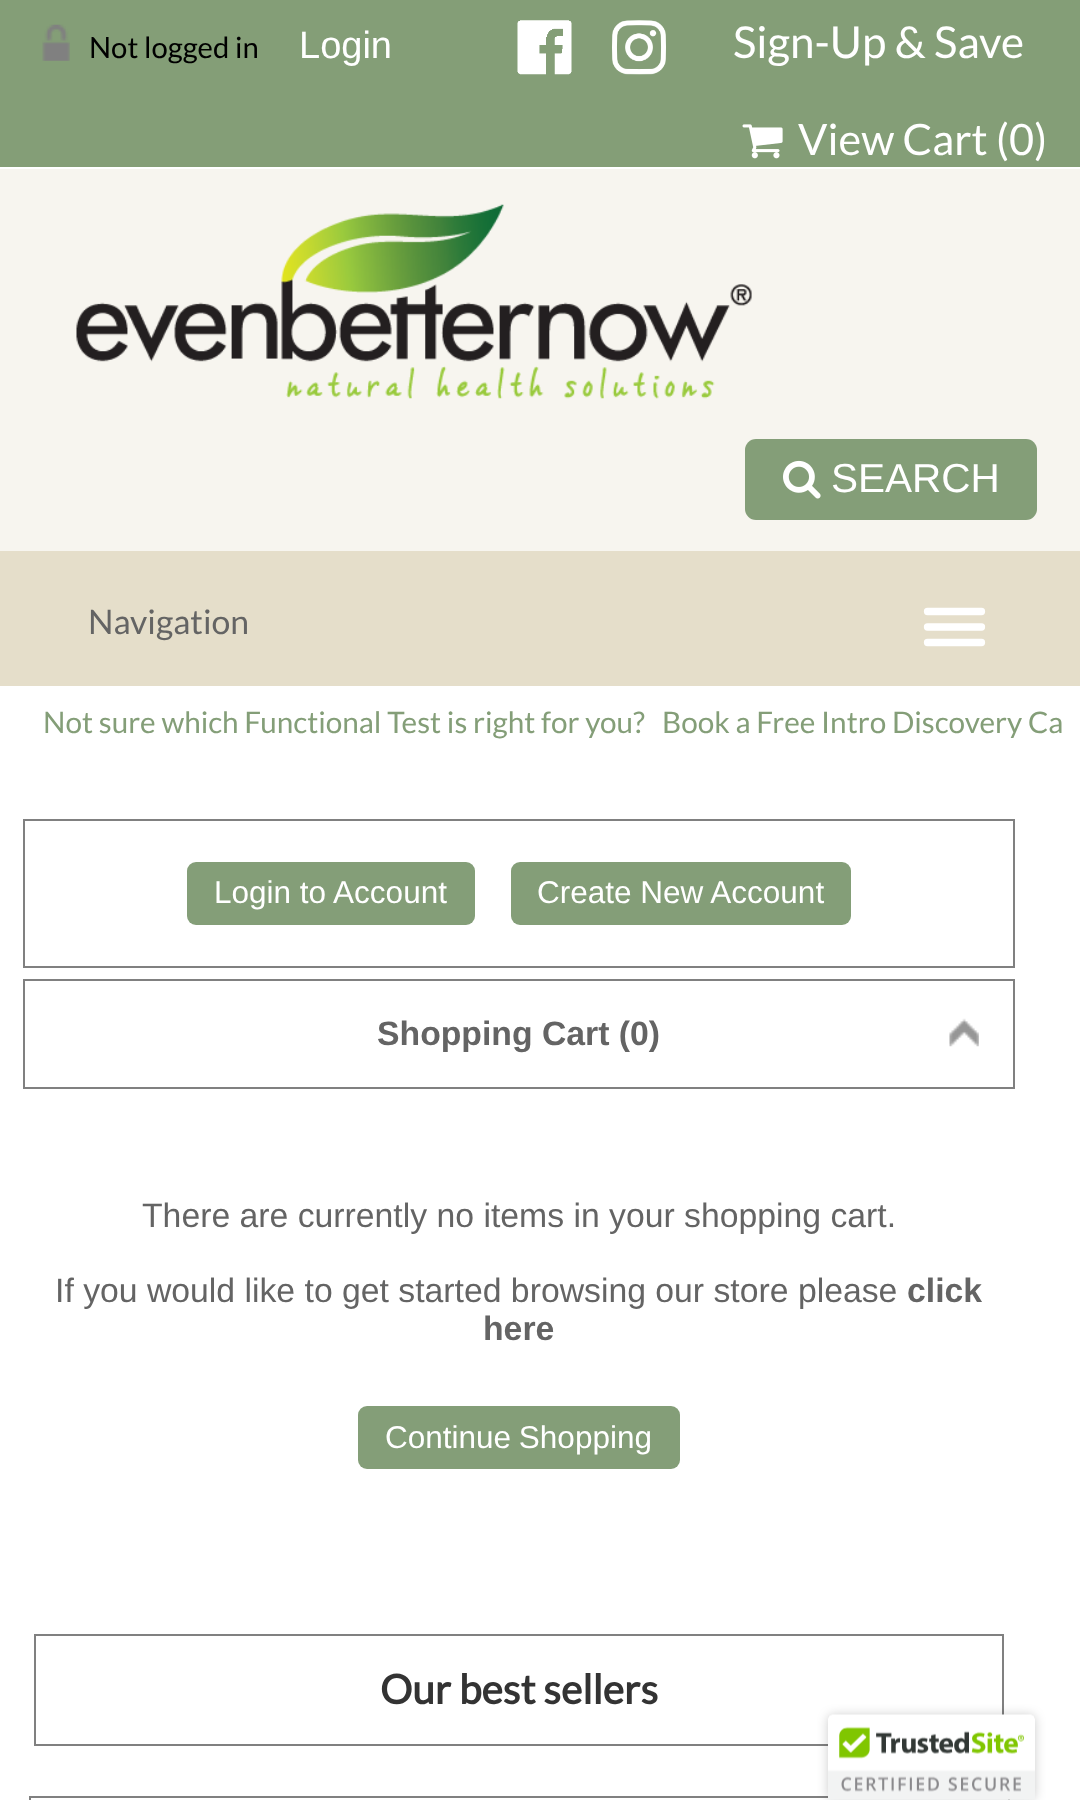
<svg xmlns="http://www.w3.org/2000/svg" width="1080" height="1800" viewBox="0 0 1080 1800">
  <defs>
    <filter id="blur1" x="-50%" y="-200%" width="200%" height="500%"><feGaussianBlur stdDeviation="5.5"/></filter>
  </defs>
  <rect width="100%" height="100%" fill="#ffffff"/>
  <rect x="0" y="0" width="1080" height="167" fill="#849e77"/>
  <image x="42" y="24" width="28" height="37" href="img1.png"/>
  <text x="89" y="58" font-family="Lato" font-size="29.25" fill="#000000">Not logged in</text>
  <text x="299" y="58" font-family="Liberation Sans" font-size="38" fill="#ffffff">Login</text>
  <image x="517" y="20" width="55" height="55" href="img2.png"/>
  <image x="612" y="20" width="54" height="55" href="img3.png"/>
  <text x="733" y="58" font-family="Lato" font-size="44" fill="#ffffff">Sign-Up &amp; Save</text>
  <image x="742" y="124" width="41" height="35" href="img4.png"/>
  <text x="798" y="155" font-family="Lato" font-size="43.25" fill="#ffffff">View Cart (0)</text>
  <rect x="0" y="169" width="1080" height="382" fill="#f7f5ef"/>
  <image x="76" y="204" width="676" height="195" href="img5.png"/>
  <rect x="745" y="439" width="292" height="81" rx="11" fill="#849e78"/>
  <image x="783" y="460" width="38" height="39" href="img6.png"/>
  <text x="831" y="492" font-family="Liberation Sans" font-size="40.5" fill="#ffffff">SEARCH</text>
  <rect x="0" y="551" width="1080" height="135" fill="#e5deca"/>
  <text x="88" y="634" font-family="Lato" font-size="33.75" fill="#646464">Navigation</text>
  <path d="M927.5 611.5H981.5M927.5 627H981.5M927.5 642.5H981.5" fill="none" stroke="#ffffff" stroke-width="7.3" stroke-linecap="round"/>
  <text x="43" y="733" font-family="Lato" font-size="29.7" fill="#849e78">Not sure which Functional Test is right for you?</text>
  <text x="662" y="733" font-family="Lato" font-size="29.7" fill="#849e78">Book a Free Intro Discovery Ca</text>
  <rect x="24" y="820" width="990" height="147" fill="none" stroke="#808080" stroke-width="2"/>
  <rect x="187" y="862" width="288" height="63" rx="9" fill="#849e78"/>
  <text x="214" y="903" font-family="Liberation Sans" font-size="31.5" fill="#ffffff">Login to Account</text>
  <rect x="511" y="862" width="340" height="63" rx="9" fill="#849e78"/>
  <text x="537" y="903" font-family="Liberation Sans" font-size="31.5" fill="#ffffff">Create New Account</text>
  <rect x="24" y="980" width="990" height="108" fill="none" stroke="#808080" stroke-width="2"/>
  <text x="377" y="1045" font-family="Liberation Sans" font-size="33.75" font-weight="bold" fill="#646464">Shopping Cart (0)</text>
  <image x="949" y="1018" width="30" height="29" href="img7.png"/>
  <text x="142" y="1227" font-family="Liberation Sans" font-size="33.75" fill="#646464">There are currently no items in your shopping cart.</text>
  <text x="55" y="1302" font-family="Liberation Sans" font-size="33.75" fill="#646464">If you would like to get started browsing our store please</text>
  <text x="907" y="1302" font-family="Liberation Sans" font-size="33.75" font-weight="bold" fill="#646464">click</text>
  <text x="483" y="1340" font-family="Liberation Sans" font-size="33.75" font-weight="bold" fill="#646464">here</text>
  <rect x="358" y="1406" width="322" height="63" rx="9" fill="#849e78"/>
  <text x="385" y="1448" word-spacing="-1" font-family="Liberation Sans" font-size="31.5" fill="#ffffff">Continue Shopping</text>
  <rect x="35" y="1635" width="968" height="110" fill="none" stroke="#808080" stroke-width="2"/>
  <text x="380" y="1704" font-family="Lato" font-size="40.5" font-weight="bold" fill="#333333">Our best sellers</text>
  <rect x="30" y="1797" width="979" height="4" fill="none" stroke="#808080" stroke-width="2"/>
  <rect x="828" y="1715" width="207" height="85" rx="5" fill="#000000" fill-opacity="0.2" filter="url(#blur1)"/>
  <image x="828" y="1714" width="207" height="86" href="img8.png"/>
</svg>
